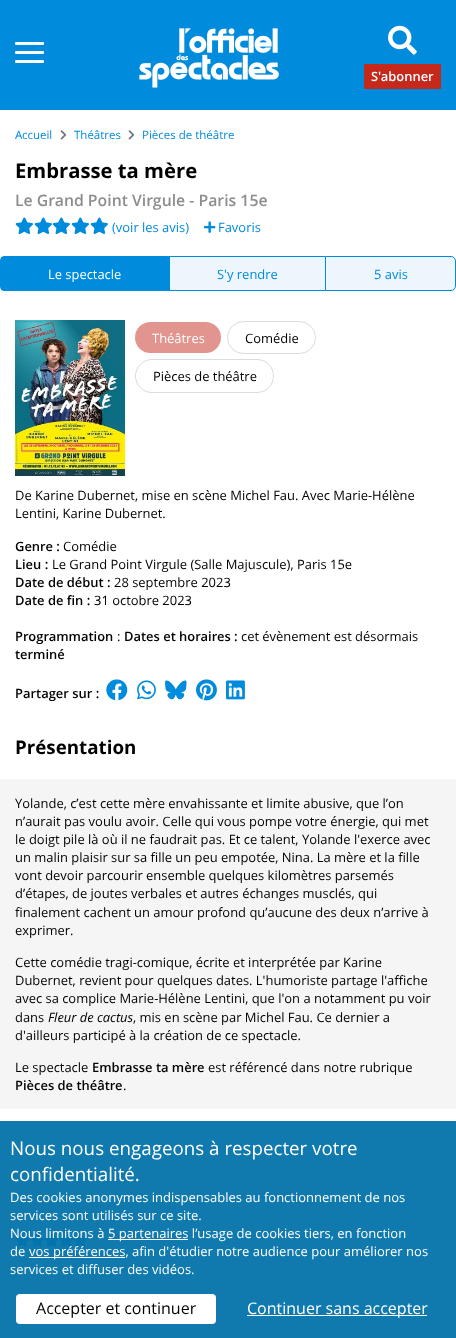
<svg xmlns="http://www.w3.org/2000/svg" width="456" height="1338" viewBox="0 0 456 1338">
  <rect width="100%" height="100%" fill="#ffffff"/>
  <rect x="0" y="1121" width="456" height="217" fill="#107aaf"/>
  <rect x="0" y="0" width="456" height="110" fill="#008bdc"/>
  <image x="15" y="42" width="29" height="21" href="img1.png"/>
  <image x="139" y="28" width="140" height="60" href="img2.png"/>
  <image x="388" y="25" width="29" height="30" href="img3.png"/>
  <rect x="364" y="64" width="77" height="25" fill="#c4291c"/>
  <text x="371" y="81" font-family="Open Sans" font-size="12.95" font-weight="600" fill="#ffffff">S'abonner</text>
  <text x="15" y="139" font-family="Noto Sans" font-size="11.5" fill="#008bdc">A</text>
  <text x="22" y="139" font-family="Open Sans" font-size="11.5" fill="#008bdc">ccueil</text>
  <image x="60" y="130" width="7" height="10" href="img4.png"/>
  <text x="74" y="139" font-family="Open Sans" font-size="11.5" fill="#008bdc">Théâtres</text>
  <image x="128" y="130" width="7" height="10" href="img4.png"/>
  <text x="142" y="139" font-family="Open Sans" font-size="11.5" fill="#008bdc">Pièces de théâtre</text>
  <text x="15" y="178" font-family="Open Sans" font-size="20.25" font-weight="bold" fill="#000000">Embrasse ta mère</text>
  <text x="15" y="206" font-family="Open Sans" font-size="15.8" font-weight="600" fill="#8d8d8d">Le Grand Point Virgule - Paris 15e</text>
  <image x="15" y="217" width="18" height="17" href="img5.png"/>
  <image x="34" y="217" width="18" height="17" href="img5.png"/>
  <image x="52" y="217" width="18" height="17" href="img5.png"/>
  <image x="71" y="217" width="18" height="17" href="img5.png"/>
  <image x="90" y="217" width="18" height="17" href="img5.png"/>
  <text x="112" y="232" font-family="Open Sans" font-size="12.95" fill="#008bdc">(voir les avis)</text>
  <image x="204" y="221" width="12" height="12" href="img6.png"/>
  <text x="218" y="232" font-family="Open Sans" font-size="12.95" fill="#008bdc">Favoris</text>
  <path d="M5 256H169V291H5C2 291 0 289 0 286V261C0 258 2 256 5 256ZM5 257H169V290H5C3 290 1 288 1 286V261C1 259 3 257 5 257Z" fill="#008bdc" fill-rule="evenodd"/>
  <rect x="1" y="257" width="168" height="33" fill="#008bdc"/>
  <text x="48" y="279" font-family="Open Sans" font-size="12.95" fill="#ffffff">Le spectacle</text>
  <rect x="170" y="257" width="155" height="33" fill="#ecf6fc"/>
  <rect x="169" y="256" width="156" height="1" fill="#008bdc"/>
  <rect x="169" y="290" width="156" height="1" fill="#008bdc"/>
  <rect x="169" y="256" width="1" height="35" fill="#008bdc"/>
  <text x="217" y="279" font-family="Open Sans" font-size="12.95" fill="#008bdc">S'y rendre</text>
  <path d="M325.5 256.5H451C453.5 256.5 455.5 258.5 455.5 261V286C455.5 288.5 453.5 290.5 451 290.5H325.5Z" fill="#ecf6fc" stroke="#008bdc"/>
  <text x="374" y="279" font-family="Open Sans" font-size="12.95" fill="#008bdc">5 avis</text>
  <image x="15" y="320" width="110" height="156" href="img7.png"/>
  <rect x="135" y="322" width="86" height="31" rx="15.5" fill="#e2948e"/>
  <text x="152" y="343" font-family="Open Sans" font-size="12.95" fill="#ffffff">Théâtres</text>
  <rect x="227.5" y="321.5" width="88" height="32" rx="16" fill="none" stroke="#dbdbdc"/>
  <text x="245" y="343" font-family="Open Sans" font-size="12.95" fill="#000000">Comédie</text>
  <rect x="135.5" y="359.5" width="138" height="33" rx="16.5" fill="none" stroke="#dbdbdc"/>
  <text x="153" y="381" font-family="Open Sans" font-size="12.95" fill="#000000">Pièces de théâtre</text>
  <text x="15" y="500" font-family="Open Sans" font-size="12.95" fill="#000000">De Karine Dubernet, mise en scène Michel Fau. Avec Marie-Hélène</text>
  <text x="15" y="518" font-family="Open Sans" font-size="12.95" fill="#000000">Lentini, Karine Dubernet.</text>
  <text x="15" y="551" font-family="Open Sans" font-size="12.95" font-weight="600" fill="#000000">Genre :</text>
  <text x="63" y="551" font-family="Open Sans" font-size="12.95" fill="#000000">Comédie</text>
  <text x="15" y="569" font-family="Open Sans" font-size="12.95" font-weight="600" fill="#000000">Lieu :</text>
  <text x="52" y="569" font-family="Open Sans" font-size="12.95" fill="#000000">Le Grand Point Virgule (Salle Majuscule), Paris 15e</text>
  <text x="15" y="587" font-family="Open Sans" font-size="12.95" font-weight="600" fill="#000000">Date de début :</text>
  <text x="114" y="587" font-family="Open Sans" font-size="12.95" fill="#000000">28 septembre 2023</text>
  <text x="15" y="605" font-family="Open Sans" font-size="12.95" font-weight="600" fill="#000000">Date de fin :</text>
  <text x="94" y="605" font-family="Open Sans" font-size="12.95" fill="#000000">31 octobre 2023</text>
  <text x="15" y="641" font-family="Open Sans" font-size="12.95" font-weight="600" fill="#000000">Programmation</text>
  <text x="117" y="641" font-family="Open Sans" font-size="12.95" fill="#000000">:</text>
  <text x="124" y="641" font-family="Open Sans" font-size="12.95" font-weight="600" fill="#000000">Dates et horaires :</text>
  <text x="241" y="641" font-family="Open Sans" font-size="12.95" fill="#000000">cet évènement est désormais</text>
  <text x="15" y="659" font-family="Open Sans" font-size="12.95" font-weight="600" fill="#000000">terminé</text>
  <text x="15" y="698" font-family="Open Sans" font-size="12.95" font-weight="600" fill="#000000">Partager sur :</text>
  <image x="106" y="679" width="22" height="22" href="img8.png"/>
  <image x="137" y="680" width="19" height="20" href="img9.png"/>
  <image x="165" y="680" width="22" height="20" href="img10.png"/>
  <image x="196" y="679" width="21" height="22" href="img11.png"/>
  <image x="226" y="680" width="19" height="20" href="img12.png"/>
  <text x="15" y="754" font-family="Open Sans" font-size="18.75" font-weight="bold" fill="#000000">Présentation</text>
  <rect x="0" y="779" width="456" height="330" fill="#f5f5f5"/>
  <text x="15" y="808" font-family="Open Sans" font-size="12.95" fill="#000000">Yolande, c’est cette mère envahissante et limite abusive, que l’on</text>
  <text x="15" y="826" font-family="Open Sans" font-size="12.95" fill="#000000">n’aurait pas voulu avoir. Celle qui vous pompe votre énergie, qui met</text>
  <text x="15" y="844" font-family="Open Sans" font-size="12.95" fill="#000000">le doigt pile là où il ne faudrait pas. Et ce talent, Yolande l'exerce avec</text>
  <text x="15" y="862" font-family="Open Sans" font-size="12.95" fill="#000000">un malin plaisir sur sa fille un peu empotée, Nina. La mère et la fille</text>
  <text x="15" y="880" font-family="Open Sans" font-size="12.95" fill="#000000">vont devoir parcourir ensemble quelques kilomètres parsemés</text>
  <text x="15" y="898" font-family="Open Sans" font-size="12.95" fill="#000000">d’étapes, de joutes verbales et autres échanges musclés, qui</text>
  <text x="15" y="917" font-family="Open Sans" font-size="12.95" fill="#000000">finalement cachent un amour profond qu’aucune des deux n’arrive à</text>
  <text x="15" y="935" font-family="Open Sans" font-size="12.95" fill="#000000">exprimer.</text>
  <text x="15" y="967" font-family="Open Sans" font-size="12.95" fill="#000000">Cette comédie tragi-comique, écrite et interprétée par Karine</text>
  <text x="15" y="985" font-family="Open Sans" font-size="12.95" fill="#000000">Dubernet, revient pour quelques dates. L'humoriste partage l'affiche</text>
  <text x="15" y="1003" font-family="Open Sans" font-size="12.95" fill="#000000">avec sa complice Marie-Hélène Lentini, que l'on a notamment pu voir</text>
  <text x="15" y="1022" font-family="Open Sans" font-size="12.95" fill="#000000">dans</text>
  <text x="48" y="1022" font-family="Open Sans" font-size="12.95" font-style="italic" fill="#000000">Fleur de cactus</text>
  <text x="133" y="1022" font-family="Open Sans" font-size="12.95" fill="#000000">, mis en scène par Michel Fau. Ce dernier a</text>
  <text x="15" y="1040" font-family="Open Sans" font-size="12.95" fill="#000000">d'ailleurs participé à la création de ce spectacle.</text>
  <text x="15" y="1072" font-family="Open Sans" font-size="12.95" fill="#000000">Le spectacle</text>
  <text x="92" y="1072" font-family="Open Sans" font-size="12.95" font-weight="600" fill="#000000">Embrasse ta mère</text>
  <text x="208" y="1072" font-family="Open Sans" font-size="12.95" fill="#000000">est référencé dans notre rubrique</text>
  <text x="15" y="1090" font-family="Open Sans" font-size="12.95" font-weight="600" fill="#000000">Pièces de théâtre</text>
  <text x="123" y="1090" font-family="Open Sans" font-size="12.95" fill="#000000">.</text>
  <image x="15" y="1233" width="14" height="14" href="img13.png"/>
  <image x="30" y="1233" width="14" height="14" href="img13.png"/>
  <image x="44" y="1233" width="14" height="14" href="img13.png"/>
  <image x="59" y="1233" width="14" height="14" href="img13.png"/>
  <image x="73" y="1233" width="14" height="14" href="img13.png"/>
  <text x="10" y="1155" font-family="Open Sans" font-size="18.75" fill="#ffffff">Nous nous engageons à respecter votre</text>
  <text x="10" y="1181" font-family="Open Sans" font-size="18.75" fill="#ffffff">confidentialité.</text>
  <text x="10" y="1202" font-family="Open Sans" font-size="13" fill="#ffffff">Des cookies anonymes indispensables au fonctionnement de nos</text>
  <text x="10" y="1220" font-family="Open Sans" font-size="13" fill="#ffffff">services sont utilisés sur ce site.</text>
  <text x="10" y="1238" font-family="Open Sans" font-size="13" fill="#ffffff">Nous limitons à</text>
  <rect x="108" y="1239" width="80" height="1" fill="#ffffff"/>
  <text x="108" y="1238" font-family="Open Sans" font-size="13" fill="#ffffff">5 partenaires l’usage de cookies tiers, en fonction</text>
  <text x="10" y="1256" font-family="Open Sans" font-size="13" fill="#ffffff">de</text>
  <rect x="29" y="1257" width="96" height="1" fill="#ffffff"/>
  <text x="29" y="1256" font-family="Open Sans" font-size="13" fill="#ffffff">vos préférences, afin d'étudier notre audience pour améliorer nos</text>
  <text x="10" y="1274" font-family="Open Sans" font-size="13" fill="#ffffff">services et diffuser des vidéos.</text>
  <rect x="16" y="1294" width="200" height="30" rx="4" fill="#ffffff"/>
  <text x="36" y="1314" font-family="Open Sans" font-size="16" fill="#000000">Accepter et continuer</text>
  <rect x="247" y="1315" width="180" height="1" fill="#ffffff"/>
  <text x="247" y="1314" font-family="Open Sans" font-size="16" fill="#ffffff">Continuer sans accepter</text>
</svg>
